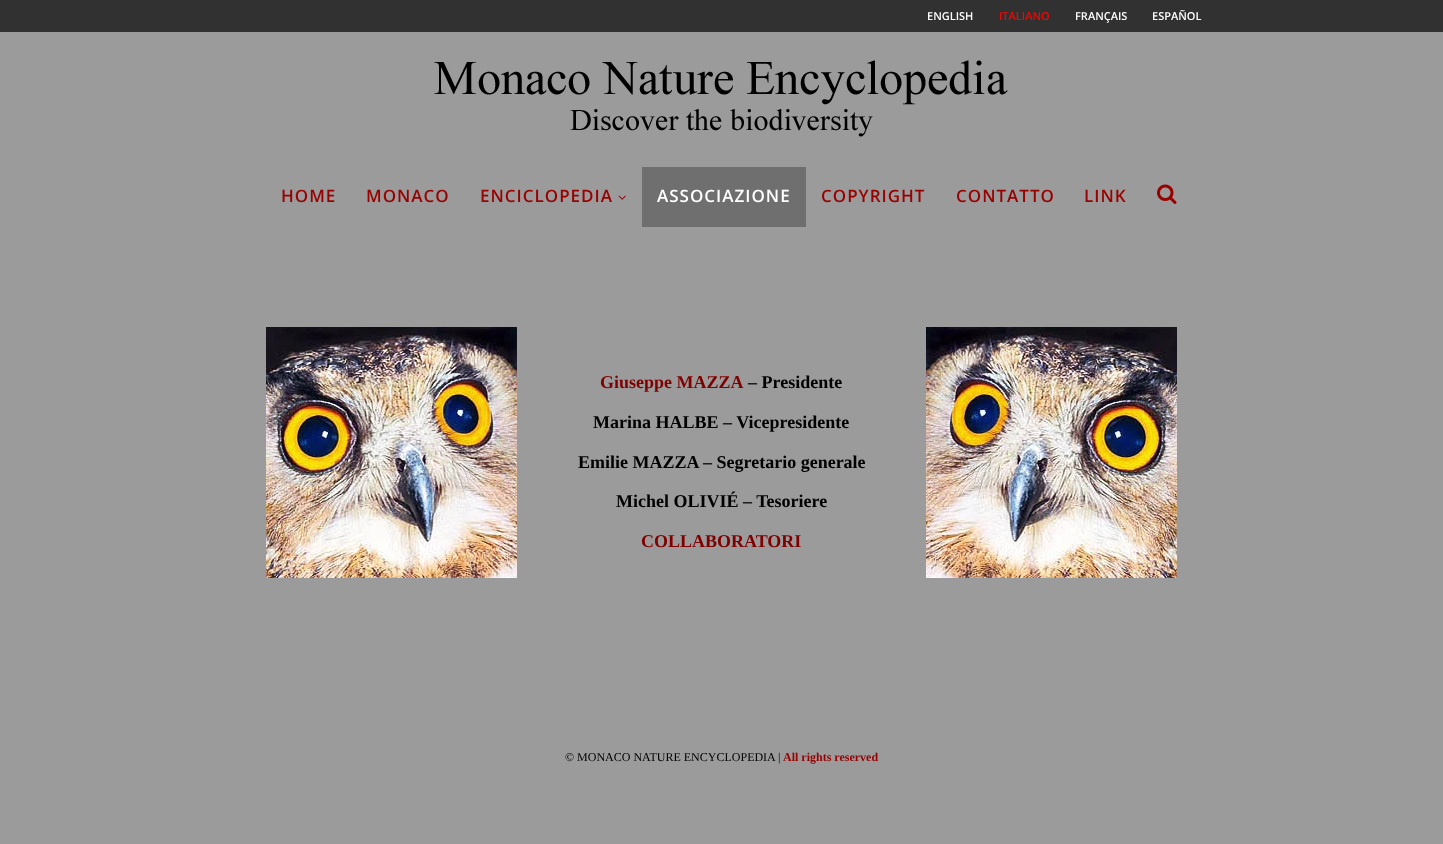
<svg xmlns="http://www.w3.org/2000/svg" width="1443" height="844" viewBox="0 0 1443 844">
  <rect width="100%" height="100%" fill="#9b9b9b"/>
  <rect x="0" y="0" width="1443" height="32" fill="#313131"/>
  <text x="927" y="20" font-family="Open Sans" font-size="11" font-weight="600" fill="#ffffff">ENGLISH</text>
  <text x="999" y="20" font-family="Open Sans" font-size="11" font-weight="600" fill="#ff0000">ITALIANO</text>
  <text x="1075" y="20" font-family="Open Sans" font-size="11" font-weight="600" fill="#ffffff">FRANÇAIS</text>
  <text x="1152" y="20" font-family="Open Sans" font-size="11" font-weight="600" fill="#ffffff">ESPAÑOL</text>
  <image x="434" y="60" width="574" height="77" href="img1.png"/>
  <text x="281" y="202" font-family="Open Sans" font-size="17" font-weight="600" letter-spacing="1" fill="#990000">HOME</text>
  <text x="366" y="202" font-family="Open Sans" font-size="17" font-weight="600" letter-spacing="1" fill="#990000">MONACO</text>
  <text x="480" y="202" font-family="Open Sans" font-size="17" font-weight="600" letter-spacing="1" fill="#990000">ENCICLOPEDIA</text>
  <image x="618" y="195" width="8" height="5" href="img2.png"/>
  <rect x="642" y="167" width="164" height="60" fill="#6f6f6f"/>
  <text x="657" y="202" font-family="Open Sans" font-size="17" font-weight="600" letter-spacing="1" fill="#ffffff">ASSOCIAZIONE</text>
  <text x="821" y="202" font-family="Open Sans" font-size="17" font-weight="600" letter-spacing="1" fill="#990000">COPYRIGHT</text>
  <text x="956" y="202" font-family="Open Sans" font-size="17" font-weight="600" letter-spacing="1" fill="#990000">CONTATTO</text>
  <text x="1084" y="202" font-family="Open Sans" font-size="17" font-weight="600" letter-spacing="1" fill="#990000">LINK</text>
  <image x="1157" y="184" width="20" height="20" href="img3.png"/>
  <image x="266" y="327" width="251" height="251" href="img4.png"/>
  <text x="600" y="388" font-family="Liberation Serif" font-size="18" font-weight="bold" fill="#800000">Giuseppe MAZZA</text>
  <text x="748" y="388" font-family="Liberation Serif" font-size="18" font-weight="bold" fill="#000000">– Presidente</text>
  <text x="593" y="428" font-family="Liberation Serif" font-size="18" font-weight="bold" fill="#000000">Marina HALBE – Vicepresidente</text>
  <text x="578" y="468" font-family="Liberation Serif" font-size="18" font-weight="bold" fill="#000000">Emilie MAZZA – Segretario generale</text>
  <text x="616" y="507" font-family="Liberation Serif" font-size="18" font-weight="bold" fill="#000000">Michel OLIVIÉ – Tesoriere</text>
  <text x="641" y="547" font-family="Liberation Serif" font-size="18" font-weight="bold" fill="#800000">COLLABORATORI</text>
  <image x="926" y="327" width="251" height="251" href="img5.png"/>
  <text x="565" y="761" font-family="Liberation Serif" font-size="12" fill="#000000">© MONACO NATURE ENCYCLOPEDIA |</text>
  <text x="783" y="761" font-family="Liberation Serif" font-size="12" font-weight="bold" fill="#990000">All rights reserved</text>
</svg>
